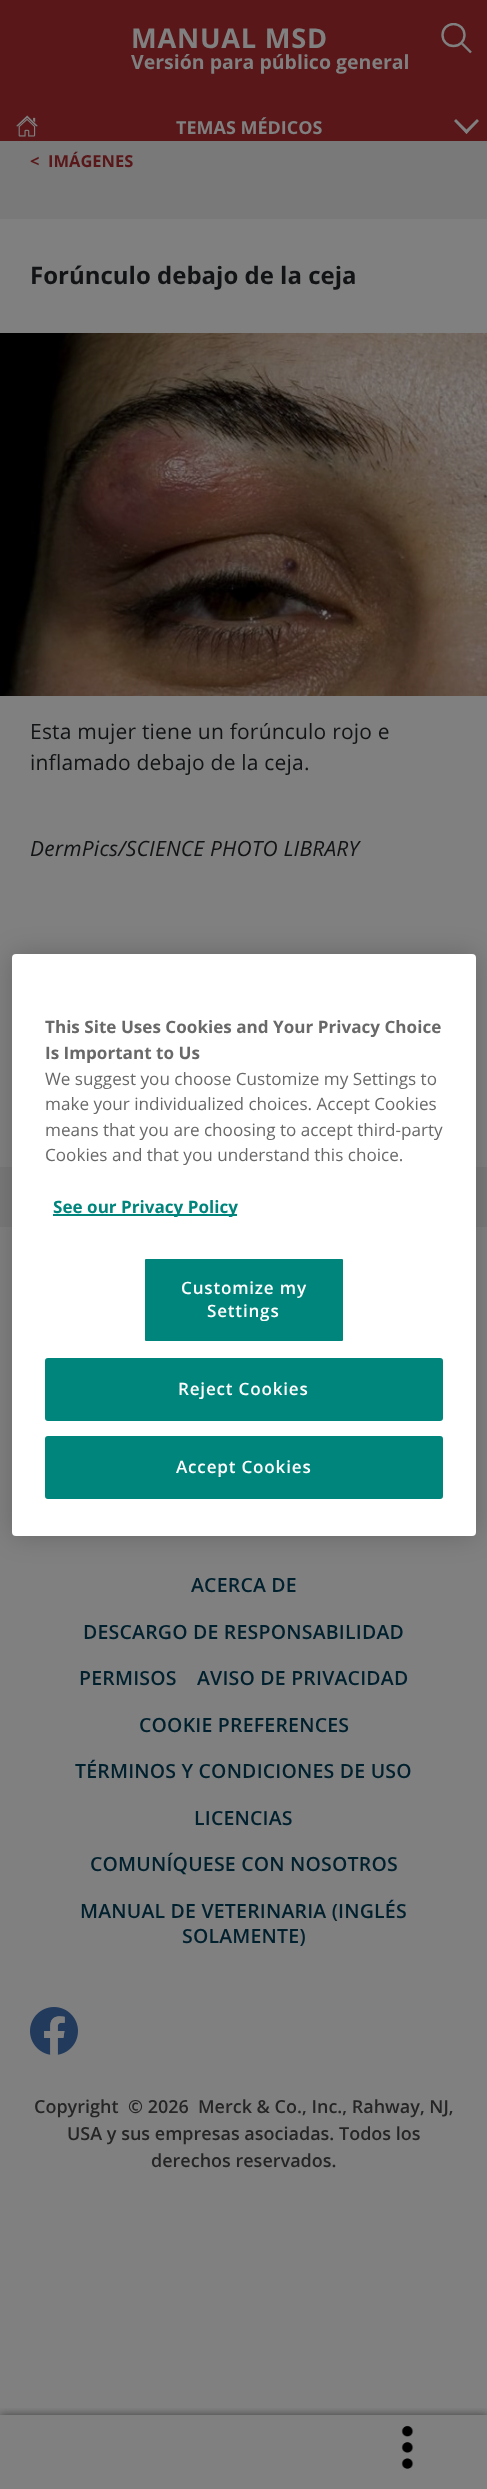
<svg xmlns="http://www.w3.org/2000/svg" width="487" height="2489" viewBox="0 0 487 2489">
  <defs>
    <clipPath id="clip1"><rect x="441" y="23" width="32" height="31"/></clipPath>
    <clipPath id="clip2"><rect x="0" y="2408" width="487" height="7"/></clipPath>
    <filter id="blur1" x="-50%" y="-200%" width="200%" height="500%"><feGaussianBlur stdDeviation="4"/></filter>
    <filter id="blur2" x="-50%" y="-200%" width="200%" height="500%"><feGaussianBlur stdDeviation="13.5"/></filter>
  </defs>
  <rect width="100%" height="100%" fill="#797979"/>
  <rect x="0" y="0" width="487" height="141" fill="#591719"/>
  <text x="131" y="48" font-family="Open Sans" font-size="27.25" font-weight="bold" letter-spacing="0.75" fill="#808080">MANUAL MSD</text>
  <text x="131" y="69" font-family="Open Sans" font-size="19.5" font-weight="bold" fill="#808080">Versión para público general</text>
  <g clip-path="url(#clip1)">
    <circle cx="453.5" cy="35" r="11" fill="none" stroke="#808080" stroke-width="2.4"/>
  </g>
  <path d="M471 52.5L462 43.5" fill="none" stroke="#808080" stroke-width="2.4"/>
  <image x="16" y="115" width="22" height="22" href="img1.png"/>
  <text x="176" y="134" font-family="Open Sans" font-size="18" font-weight="bold" fill="#808080">TEMAS MÉDICOS</text>
  <path d="M477 119L479 121L466.5 134L464.5 131.5Z" fill="#808080"/>
  <path d="M456 119L468.5 131.5L466.5 134L454 121Z" fill="#808080"/>
  <text x="30" y="167" font-family="Open Sans" font-size="16.5" font-weight="bold" fill="#591719">&lt;</text>
  <text x="48" y="167" font-family="Open Sans" font-size="16.5" font-weight="bold" fill="#591719">IMÁGENES</text>
  <rect x="0" y="219" width="487" height="948" fill="#808080"/>
  <text x="30" y="284" font-family="Open Sans" font-size="24" font-weight="bold" fill="#111315">Forúnculo debajo de la ceja</text>
  <image x="0" y="333" width="487" height="363" href="img2.png"/>
  <text x="30" y="739" font-family="Open Sans" font-size="21" letter-spacing="0.2" fill="#111315">Esta mujer tiene un forúnculo rojo e</text>
  <text x="30" y="770" font-family="Open Sans" font-size="21" letter-spacing="0.2" fill="#111315">inflamado debajo de la ceja.</text>
  <text x="30" y="856" font-family="Open Sans" font-size="21" font-style="italic" letter-spacing="0.2" fill="#111315">DermPics/SCIENCE PHOTO LIBRARY</text>
  <rect x="0" y="1227" width="487" height="1262" fill="#808080"/>
  <text x="191" y="1592" font-family="Open Sans" font-size="19.5" font-weight="600" letter-spacing="0.2" fill="#00202e">ACERCA DE</text>
  <text x="83" y="1639" font-family="Open Sans" font-size="19.5" font-weight="600" letter-spacing="0.2" fill="#00202e">DESCARGO DE RESPONSABILIDAD</text>
  <text x="79" y="1685" font-family="Open Sans" font-size="19.5" font-weight="600" letter-spacing="0.2" fill="#00202e">PERMISOS</text>
  <text x="197" y="1685" font-family="Open Sans" font-size="19.5" font-weight="600" letter-spacing="0.2" fill="#00202e">AVISO DE PRIVACIDAD</text>
  <text x="139" y="1732" font-family="Open Sans" font-size="19.5" font-weight="600" letter-spacing="0.2" fill="#00202e">COOKIE PREFERENCES</text>
  <text x="75" y="1778" font-family="Open Sans" font-size="19.5" font-weight="600" letter-spacing="0.2" fill="#00202e">TÉRMINOS Y CONDICIONES DE USO</text>
  <text x="194" y="1825" font-family="Open Sans" font-size="19.5" font-weight="600" letter-spacing="0.2" fill="#00202e">LICENCIAS</text>
  <text x="90" y="1871" font-family="Open Sans" font-size="19.5" font-weight="600" letter-spacing="0.2" fill="#00202e">COMUNÍQUESE CON NOSOTROS</text>
  <text x="80" y="1918" font-family="Open Sans" font-size="19.5" font-weight="600" letter-spacing="0.2" fill="#00202e">MANUAL DE VETERINARIA (INGLÉS</text>
  <text x="182" y="1943" font-family="Open Sans" font-size="19.5" font-weight="600" letter-spacing="0.2" fill="#00202e">SOLAMENTE)</text>
  <image x="30" y="2007" width="48" height="48" href="img3.png"/>
  <text x="34" y="2113" font-family="Open Sans" font-size="18" font-weight="600" fill="#252525">Copyright</text>
  <text x="128" y="2113" font-family="Open Sans" font-size="18" font-weight="600" fill="#252525">© 2026</text>
  <text x="198" y="2113" font-family="Open Sans" font-size="18" font-weight="600" fill="#252525">Merck &amp; Co., Inc., Rahway, NJ,</text>
  <text x="67" y="2140" font-family="Open Sans" font-size="18" font-weight="600" fill="#252525">USA y sus empresas asociadas. Todos los</text>
  <text x="151" y="2167" font-family="Open Sans" font-size="18" font-weight="600" fill="#252525">derechos reservados.</text>
  <g clip-path="url(#clip2)">
    <rect x="0" y="2415" width="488" height="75" fill="#000000" fill-opacity="0.5" filter="url(#blur1)"/>
  </g>
  <image x="401" y="2425" width="13" height="44" href="img4.png"/>
  <rect x="12" y="954" width="464" height="582" rx="4" fill="#000000" fill-opacity="0.2" filter="url(#blur2)"/>
  <rect x="12" y="954" width="464" height="582" rx="4" fill="#ffffff"/>
  <text x="45" y="1033" font-family="Open Sans" font-size="17.1" font-weight="bold" fill="#696969">This Site Uses Cookies and Your Privacy Choice</text>
  <text x="45" y="1059" font-family="Open Sans" font-size="17.1" font-weight="bold" fill="#696969">Is Important to Us</text>
  <text x="45" y="1085" font-family="Open Sans" font-size="17.1" fill="#696969">We suggest you choose Customize my Settings to</text>
  <text x="45" y="1110" font-family="Open Sans" font-size="17.1" fill="#696969">make your individualized choices. Accept Cookies</text>
  <text x="45" y="1136" font-family="Open Sans" font-size="17.1" fill="#696969">means that you are choosing to accept third-party</text>
  <text x="45" y="1161" font-family="Open Sans" font-size="17.1" fill="#696969">Cookies and that you understand this choice.</text>
  <rect x="53" y="1214" width="184" height="2" fill="#00857c"/>
  <text x="53" y="1213" font-family="Open Sans" font-size="17.1" font-weight="bold" fill="#00857c">See our Privacy Policy</text>
  <rect x="144" y="1258" width="200" height="84" rx="2" fill="#00857c" stroke="#ffffff" stroke-width="2"/>
  <text x="181" y="1294" font-family="Open Sans" font-size="17.1" font-weight="600" letter-spacing="0.8" fill="#ffffff">Customize my</text>
  <text x="207" y="1317" font-family="Open Sans" font-size="17.1" font-weight="600" letter-spacing="0.8" fill="#ffffff">Settings</text>
  <rect x="46" y="1359" width="396" height="61" rx="2" fill="#00857c" stroke="#00857c" stroke-width="2"/>
  <text x="178" y="1395" font-family="Open Sans" font-size="17.1" font-weight="600" letter-spacing="0.8" fill="#ffffff">Reject Cookies</text>
  <rect x="46" y="1437" width="396" height="61" rx="2" fill="#00857c" stroke="#00857c" stroke-width="2"/>
  <text x="176" y="1473" font-family="Open Sans" font-size="17.1" font-weight="600" letter-spacing="0.8" fill="#ffffff">Accept Cookies</text>
</svg>
